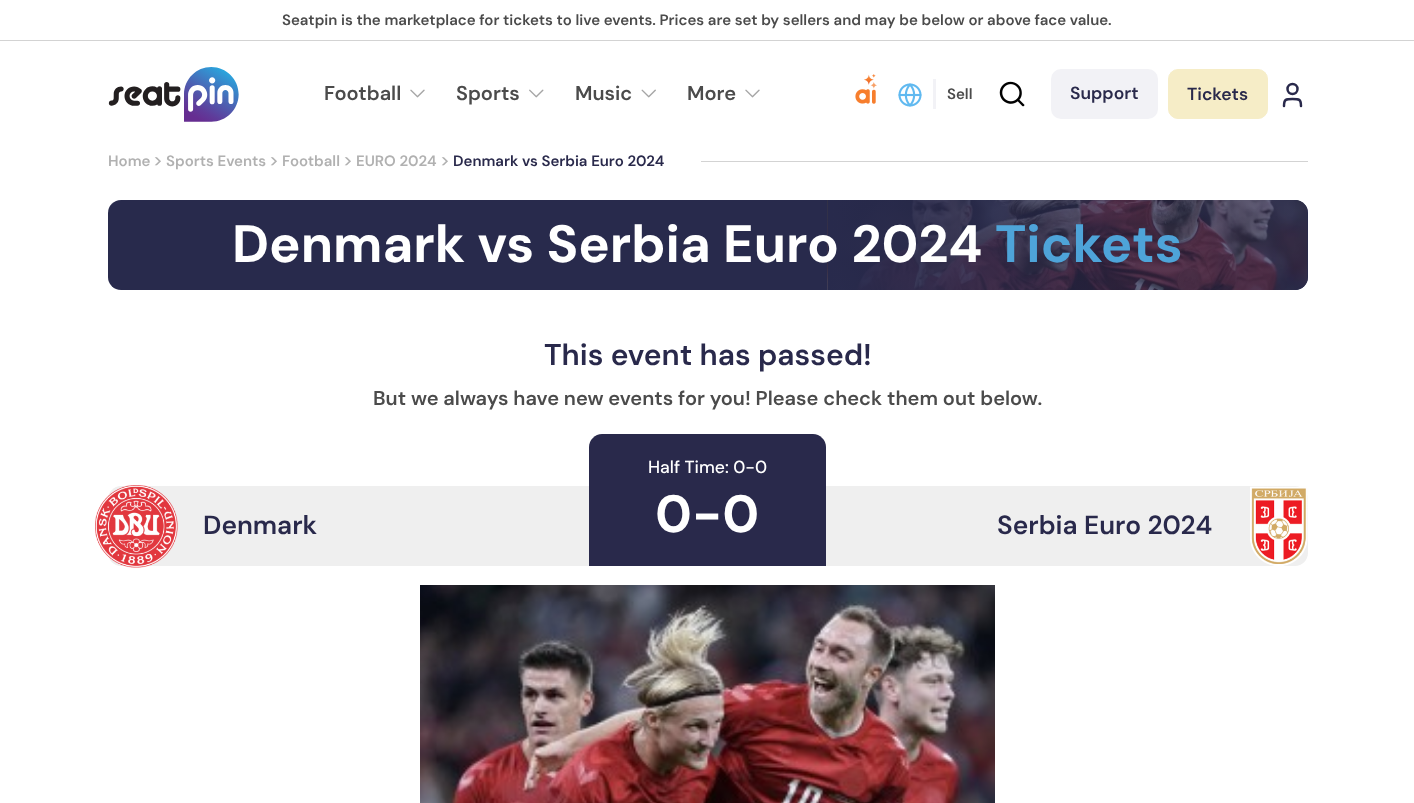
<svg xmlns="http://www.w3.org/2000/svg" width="1414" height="803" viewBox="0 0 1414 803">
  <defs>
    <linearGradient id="g1" gradientUnits="userSpaceOnUse" x1="828" y1="245" x2="1308" y2="245"><stop offset="0" stop-color="#282a4c"/><stop offset="0.65" stop-color="#282a4c" stop-opacity="0.5"/></linearGradient>
  </defs>
  <rect width="100%" height="100%" fill="#ffffff"/>
  <rect x="0" y="40" width="1414" height="1" fill="#d3d3d3"/>
  <text x="282" y="25" font-family="DM Sans" font-size="15" font-weight="600" fill="#4b4b4b">Seatpin is the marketplace for tickets to live events. Prices are set by sellers and may be below or above face value.</text>
  <image x="108" y="67" width="131" height="55" href="img1.png"/>
  <text x="324" y="100" font-family="DM Sans" font-size="20" font-weight="600" fill="#4b4b4b">Football</text>
  <image x="410" y="89" width="15" height="9" href="img2.png"/>
  <text x="456" y="100" font-family="DM Sans" font-size="20" font-weight="600" fill="#4b4b4b">Sports</text>
  <image x="529" y="89" width="15" height="9" href="img3.png"/>
  <text x="575" y="100" font-family="DM Sans" font-size="20" font-weight="600" fill="#4b4b4b">Music</text>
  <image x="641" y="89" width="15" height="9" href="img4.png"/>
  <text x="687" y="100" font-family="DM Sans" font-size="20" font-weight="600" fill="#4b4b4b">More</text>
  <image x="745" y="89" width="15" height="9" href="img2.png"/>
  <image x="855" y="74" width="22" height="30" href="img5.png"/>
  <image x="898" y="83" width="24" height="24" href="img6.png"/>
  <rect x="933" y="79" width="3" height="30" fill="#f2f2f6"/>
  <text x="947" y="99" font-family="DM Sans" font-size="15" font-weight="600" fill="#4b4b4b">Sell</text>
  <image x="999" y="81" width="26" height="26" href="img7.png"/>
  <rect x="1051" y="69" width="107" height="50" rx="10" fill="#f2f2f6"/>
  <text x="1070" y="99" font-family="DM Sans" font-size="17.5" font-weight="600" fill="#29294b">Support</text>
  <rect x="1168.5" y="69.5" width="99" height="49" rx="9.5" fill="#f6edc7" stroke="#f6edc7"/>
  <text x="1187" y="100" font-family="DM Sans" font-size="17.5" font-weight="600" fill="#29294b">Tickets</text>
  <circle cx="1292.5" cy="89" r="5" fill="none" stroke="#29294b" stroke-width="2.5"/>
  <path d="M1301 106C1301 99 1299 99 1292.5 99C1286 99 1284 99 1284 106" fill="none" stroke="#29294b" stroke-width="2.5" stroke-linecap="round" stroke-linejoin="round"/>
  <text x="108" y="166" font-family="DM Sans" font-size="15" font-weight="600" fill="#b1b1b1">Home</text>
  <text x="153" y="166" font-family="DM Sans" font-size="17.5" font-weight="500" fill="#b1b1b1">&gt;</text>
  <text x="166" y="166" font-family="DM Sans" font-size="15" font-weight="600" fill="#b1b1b1">Sports Events</text>
  <text x="269" y="166" font-family="DM Sans" font-size="17.5" font-weight="500" fill="#b1b1b1">&gt;</text>
  <text x="282" y="166" font-family="DM Sans" font-size="15" font-weight="600" fill="#b1b1b1">Football</text>
  <text x="343" y="166" font-family="DM Sans" font-size="17.5" font-weight="500" fill="#b1b1b1">&gt;</text>
  <text x="356" y="166" font-family="DM Sans" font-size="15" font-weight="600" fill="#b1b1b1">EURO 2024</text>
  <text x="440" y="166" font-family="DM Sans" font-size="17.5" font-weight="500" fill="#b1b1b1">&gt;</text>
  <text x="453" y="166" font-family="DM Sans" font-size="15" font-weight="600" fill="#29294b">Denmark vs Serbia Euro 2024</text>
  <rect x="701" y="161" width="607" height="1" fill="#d3d3d3"/>
  <rect x="108" y="200" width="1200" height="90" rx="13" fill="#282a4c"/>
  <image x="827" y="200" width="481" height="90" href="img8.png"/>
  <path d="M828 200H1295C1302 200 1308 206 1308 213V277C1308 284 1302 290 1295 290H828Z" fill="#282a4c" fill-opacity="0.4"/>
  <path d="M828 200H1295C1302 200 1308 206 1308 213V277C1308 284 1302 290 1295 290H828Z" fill="url(#g1)"/>
  <text x="232" y="262" font-family="DM Sans" font-size="52.5" font-weight="bold" fill="#ffffff">Denmark vs Serbia Euro 2024</text>
  <text x="995" y="262" font-family="DM Sans" font-size="52.5" font-weight="bold" fill="#4ea4d9">Tickets</text>
  <text x="544" y="365" font-family="DM Sans" font-size="30" font-weight="600" fill="#29294b">This event has passed!</text>
  <text x="373" y="405" font-family="DM Sans" font-size="20" font-weight="600" fill="#4b4b4b">But we always have new events for you! Please check them out below.</text>
  <path d="M121 486H589V566H121C114 566 108 560 108 553V499C108 492 114 486 121 486Z" fill="#efefef"/>
  <image x="95" y="485" width="83" height="83" href="img9.png"/>
  <text x="203" y="534" font-family="DM Sans" font-size="26.25" font-weight="600" fill="#29294b">Denmark</text>
  <path d="M602 434H813C820 434 826 440 826 447V566H589V447C589 440 595 434 602 434Z" fill="#29294b"/>
  <text x="648" y="473" font-family="DM Sans" font-size="17.5" font-weight="500" fill="#ffffff">Half Time: 0-0</text>
  <text x="655" y="532" font-family="DM Sans" font-size="52.5" font-weight="bold" fill="#ffffff">0-0</text>
  <path d="M826 486H1295C1302 486 1308 492 1308 499V553C1308 560 1302 566 1295 566H826Z" fill="#efefef"/>
  <text x="997" y="534" font-family="DM Sans" font-size="26.25" font-weight="600" fill="#29294b">Serbia Euro 2024</text>
  <image x="1250" y="486" width="58" height="80" href="img10.png"/>
  <image x="420" y="585" width="575" height="218" href="img11.png"/>
</svg>
